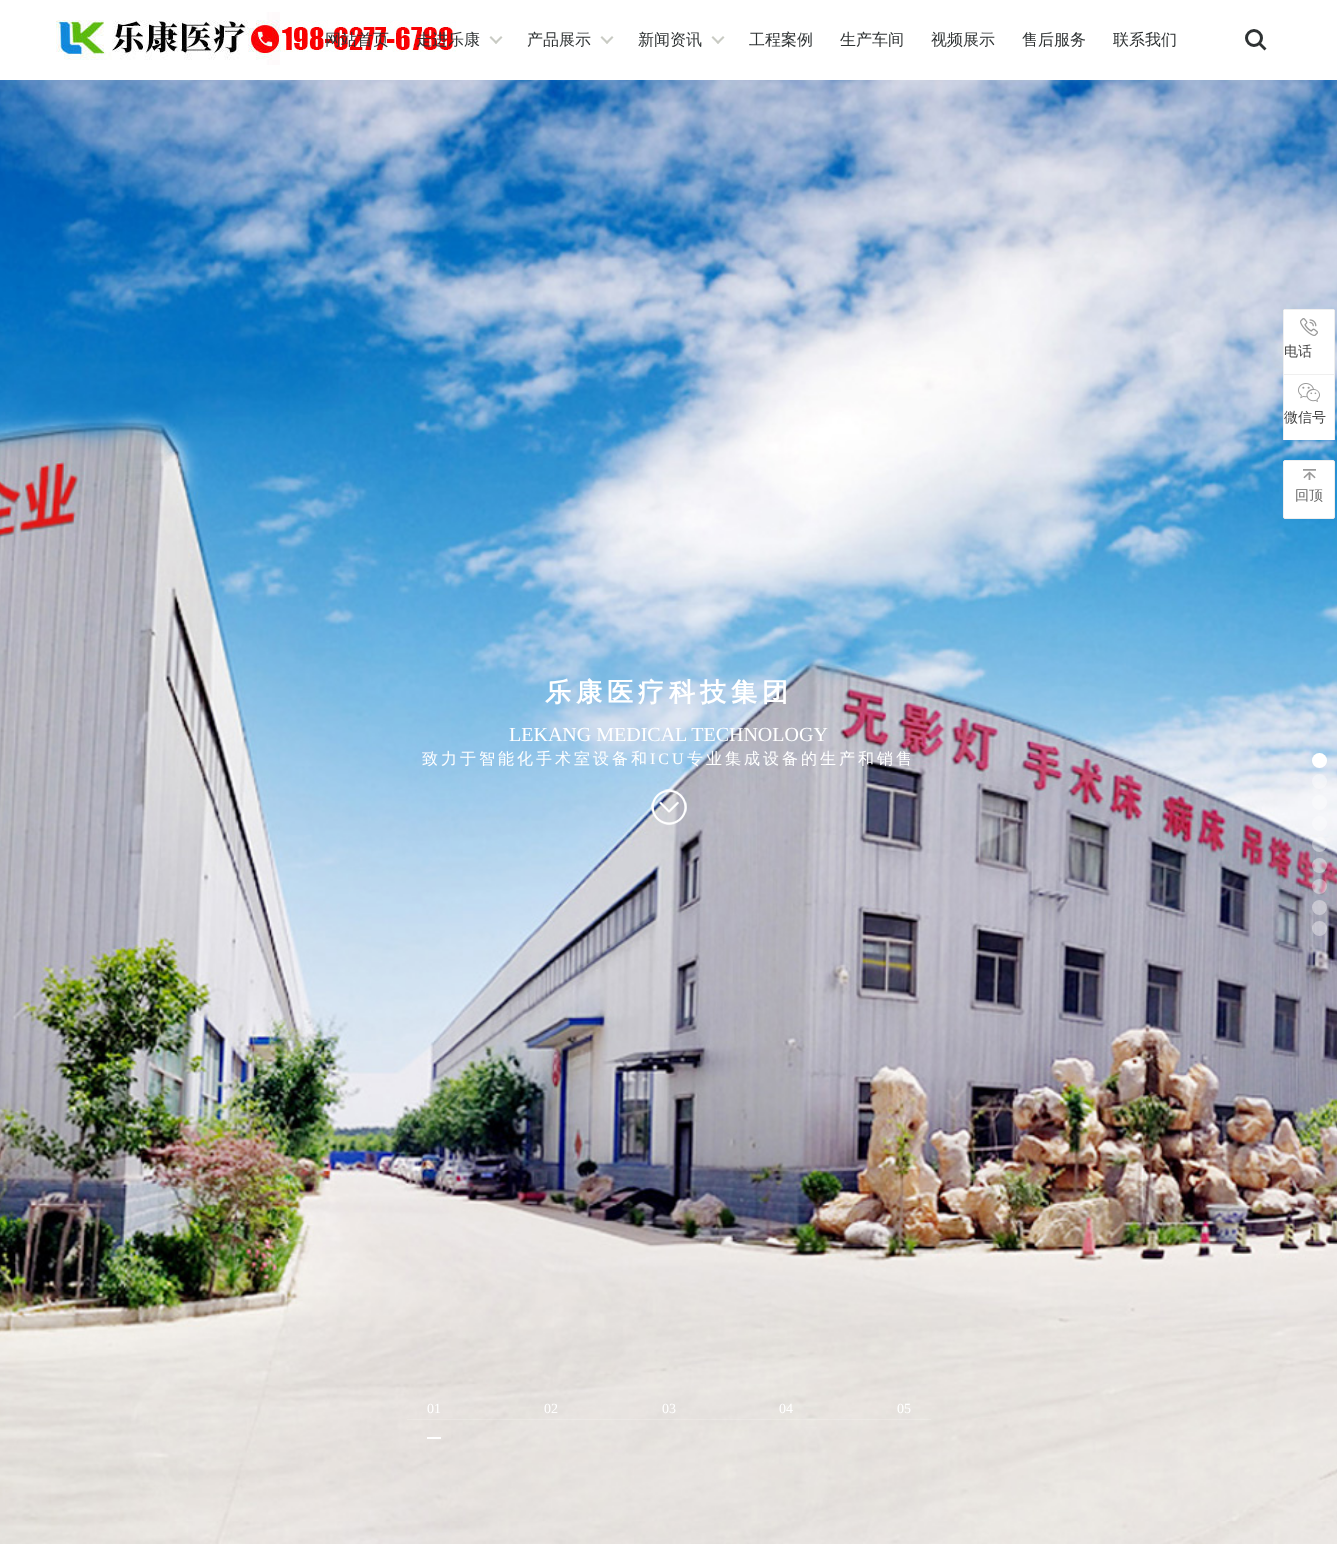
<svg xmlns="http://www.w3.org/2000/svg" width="1337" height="1544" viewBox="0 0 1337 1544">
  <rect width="100%" height="100%" fill="#ffffff"/>
  <image x="56" y="12" width="400" height="53" href="img1.png"/>
  <text x="325" y="45" font-family="WenQuanYi Zen Hei" font-size="16" font-weight="500" fill="#2e3233">网站首页</text>
  <text x="416" y="45" font-family="WenQuanYi Zen Hei" font-size="16" font-weight="500" fill="#2e3233">走进乐康</text>
  <path d="M491 36L497.5 42.5L496 44L489.5 37.5Z" fill="#c9cbc4"/>
  <path d="M494.5 42.5L501 36L502.5 37.5L496 44Z" fill="#c9cbc4"/>
  <text x="527" y="45" font-family="WenQuanYi Zen Hei" font-size="16" font-weight="500" fill="#2e3233">产品展示</text>
  <path d="M602 36L608.5 42.5L607 44L600.5 37.5Z" fill="#c9cbc4"/>
  <path d="M605.5 42.5L612 36L613.5 37.5L607 44Z" fill="#c9cbc4"/>
  <text x="638" y="45" font-family="WenQuanYi Zen Hei" font-size="16" font-weight="500" fill="#2e3233">新闻资讯</text>
  <path d="M713 36L719.5 42.5L718 44L711.5 37.5Z" fill="#c9cbc4"/>
  <path d="M716.5 42.5L723 36L724.5 37.5L718 44Z" fill="#c9cbc4"/>
  <text x="749" y="45" font-family="WenQuanYi Zen Hei" font-size="16" font-weight="500" fill="#2e3233">工程案例</text>
  <text x="840" y="45" font-family="WenQuanYi Zen Hei" font-size="16" font-weight="500" fill="#2e3233">生产车间</text>
  <text x="931" y="45" font-family="WenQuanYi Zen Hei" font-size="16" font-weight="500" fill="#2e3233">视频展示</text>
  <text x="1022" y="45" font-family="WenQuanYi Zen Hei" font-size="16" font-weight="500" fill="#2e3233">售后服务</text>
  <text x="1113" y="45" font-family="WenQuanYi Zen Hei" font-size="16" font-weight="500" fill="#2e3233">联系我们</text>
  <circle cx="1254" cy="38" r="7.5" fill="none" stroke="#2e3233" stroke-width="3"/>
  <path d="M1260.5 42.5L1266.5 48.5L1264.5 50.5L1258.5 44.5Z" fill="#2e3233"/>
  <image x="0" y="80" width="1337" height="1464" href="img2.png"/>
  <text x="545" y="701" font-family="WenQuanYi Zen Hei" font-size="26" font-weight="bold" letter-spacing="5" fill="#ffffff">乐康医疗科技集团</text>
  <text x="509" y="741" font-family="Liberation Serif" font-size="20" fill="#ffffff">LEKANG MEDICAL TECHNOLOGY</text>
  <text x="422" y="764" font-family="WenQuanYi Zen Hei" font-size="16" font-weight="500" letter-spacing="3" fill="#ffffff">致力于智能化手术室设备和</text>
  <text x="650" y="764" font-family="Liberation Serif" font-size="16" letter-spacing="3" fill="#ffffff">ICU</text>
  <text x="687" y="764" font-family="WenQuanYi Zen Hei" font-size="16" font-weight="500" letter-spacing="3" fill="#ffffff">专业集成设备的生产和销售</text>
  <image x="651" y="789" width="36" height="36" href="img3.png"/>
  <rect x="407" y="1419" width="524" height="1" fill="#ffffff" fill-opacity="0.2"/>
  <text x="427" y="1413" font-family="Liberation Serif" font-size="14" fill="#ffffff">01</text>
  <rect x="427" y="1437" width="14" height="2" fill="#ffffff"/>
  <text x="544" y="1413" font-family="Liberation Serif" font-size="14" fill="#ffffff">02</text>
  <text x="662" y="1413" font-family="Liberation Serif" font-size="14" fill="#ffffff">03</text>
  <text x="779" y="1413" font-family="Liberation Serif" font-size="14" fill="#ffffff">04</text>
  <text x="897" y="1413" font-family="Liberation Serif" font-size="14" fill="#ffffff">05</text>
  <circle cx="1319.5" cy="760.5" r="7.5" fill="#ffffff"/>
  <circle cx="1319.5" cy="781.5" r="7.5" fill="#ffffff" fill-opacity="0.4"/>
  <circle cx="1319.5" cy="802.5" r="7.5" fill="#f8f9fb"/>
  <circle cx="1319.5" cy="823.5" r="7.5" fill="#ffffff" fill-opacity="0.4"/>
  <circle cx="1319.5" cy="844.5" r="7.5" fill="#ffffff" fill-opacity="0.4"/>
  <circle cx="1319.5" cy="865.5" r="7.5" fill="#ffffff" fill-opacity="0.4"/>
  <circle cx="1319.5" cy="886.5" r="7.5" fill="#ffffff" fill-opacity="0.4"/>
  <circle cx="1319.5" cy="907.5" r="7.5" fill="#ffffff" fill-opacity="0.4"/>
  <circle cx="1319.5" cy="928.5" r="7.5" fill="#ffffff" fill-opacity="0.4"/>
  <path d="M1285 309H1333C1334 309 1335 310 1335 311V374H1283V311C1283 310 1284 309 1285 309Z" fill="#ffffff"/>
  <rect x="1284" y="309" width="50" height="1" fill="#efefef"/>
  <rect x="1334" y="310" width="1" height="64" fill="#efefef"/>
  <rect x="1283" y="310" width="1" height="64" fill="#efefef"/>
  <image x="1300" y="318" width="18" height="18" href="img4.png"/>
  <text x="1284" y="356" font-family="WenQuanYi Zen Hei" font-size="14" font-weight="500" fill="#444444">电话</text>
  <rect x="1284" y="375" width="50" height="65" fill="#ffffff"/>
  <rect x="1283" y="374" width="52" height="1" fill="#efefef"/>
  <rect x="1334" y="374" width="1" height="66" fill="#efefef"/>
  <rect x="1283" y="374" width="1" height="66" fill="#efefef"/>
  <image x="1298" y="383" width="22" height="19" href="img5.png"/>
  <text x="1284" y="422" font-family="WenQuanYi Zen Hei" font-size="14" font-weight="500" fill="#444444">微信号</text>
  <rect x="1283.5" y="460.5" width="51" height="58" rx="1.5" fill="#ffffff" stroke="#efefef"/>
  <image x="1303" y="469" width="13" height="11" href="img6.png"/>
  <text x="1295" y="500" font-family="WenQuanYi Zen Hei" font-size="14" font-weight="500" fill="#666666">回顶</text>
</svg>
